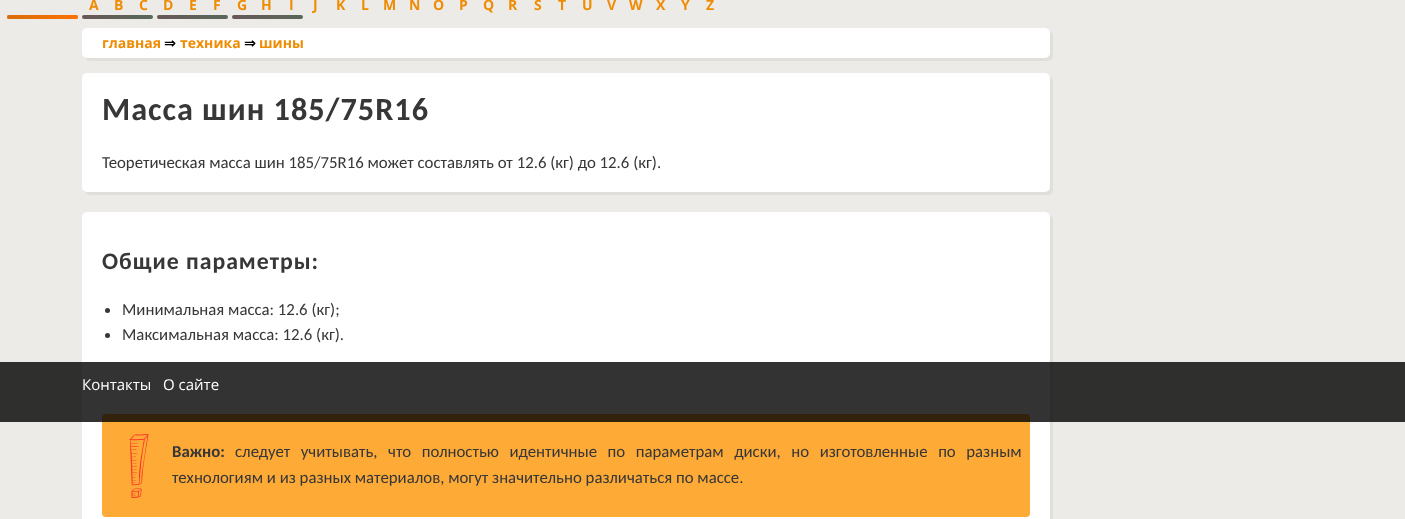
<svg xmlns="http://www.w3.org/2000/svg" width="1405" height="519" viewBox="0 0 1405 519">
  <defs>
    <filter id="blur1" x="-50%" y="-200%" width="200%" height="500%"><feGaussianBlur stdDeviation="0.5"/></filter>
    <linearGradient id="g1" gradientUnits="userSpaceOnUse" x1="7" y1="17" x2="149" y2="17"><stop offset="0" stop-color="#d9680b" stop-opacity="0.83"/><stop offset="0.5" stop-color="#ff7300"/><stop offset="0.5" stop-color="#685858"/><stop offset="1" stop-color="#586859"/></linearGradient>
    <linearGradient id="g2" gradientUnits="userSpaceOnUse" x1="11" y1="17" x2="153" y2="17"><stop offset="0" stop-color="#d9680b" stop-opacity="0.83"/><stop offset="0.5" stop-color="#ff7300"/><stop offset="0.5" stop-color="#685858"/><stop offset="1" stop-color="#586859"/></linearGradient>
    <linearGradient id="g3" gradientUnits="userSpaceOnUse" x1="86" y1="17" x2="228" y2="17"><stop offset="0" stop-color="#d9680b" stop-opacity="0.83"/><stop offset="0.5" stop-color="#ff7300"/><stop offset="0.5" stop-color="#685858"/><stop offset="1" stop-color="#586859"/></linearGradient>
    <linearGradient id="g4" gradientUnits="userSpaceOnUse" x1="161" y1="17" x2="303" y2="17"><stop offset="0" stop-color="#d9680b" stop-opacity="0.83"/><stop offset="0.5" stop-color="#ff7300"/><stop offset="0.5" stop-color="#685858"/><stop offset="1" stop-color="#586859"/></linearGradient>
  </defs>
  <rect width="100%" height="100%" fill="#ecebe7"/>
  <text x="89" y="10" font-family="Open Sans" font-size="14" font-weight="bold" fill="#ef8c03">A</text>
  <text x="114" y="10" font-family="Open Sans" font-size="14" font-weight="bold" fill="#ef8c03">B</text>
  <text x="139" y="10" font-family="Open Sans" font-size="14" font-weight="bold" fill="#ef8c03">C</text>
  <text x="163" y="10" font-family="Open Sans" font-size="14" font-weight="bold" fill="#ef8c03">D</text>
  <text x="189" y="10" font-family="Open Sans" font-size="14" font-weight="bold" fill="#ef8c03">E</text>
  <text x="213" y="10" font-family="Open Sans" font-size="14" font-weight="bold" fill="#ef8c03">F</text>
  <text x="237" y="10" font-family="Open Sans" font-size="14" font-weight="bold" fill="#ef8c03">G</text>
  <text x="261" y="10" font-family="Open Sans" font-size="14" font-weight="bold" fill="#ef8c03">H</text>
  <text x="289" y="10" font-family="Open Sans" font-size="14" font-weight="bold" fill="#ef8c03">I</text>
  <text x="313" y="10" font-family="Open Sans" font-size="14" font-weight="bold" fill="#ef8c03">J</text>
  <text x="336" y="10" font-family="Open Sans" font-size="14" font-weight="bold" fill="#ef8c03">K</text>
  <text x="361" y="10" font-family="Open Sans" font-size="14" font-weight="bold" fill="#ef8c03">L</text>
  <text x="383" y="10" font-family="Open Sans" font-size="14" font-weight="bold" fill="#ef8c03">M</text>
  <text x="409" y="10" font-family="Open Sans" font-size="14" font-weight="bold" fill="#ef8c03">N</text>
  <text x="433" y="10" font-family="Open Sans" font-size="14" font-weight="bold" fill="#ef8c03">O</text>
  <text x="459" y="10" font-family="Open Sans" font-size="14" font-weight="bold" fill="#ef8c03">P</text>
  <text x="483" y="10" font-family="Open Sans" font-size="14" font-weight="bold" fill="#ef8c03">Q</text>
  <text x="508" y="10" font-family="Open Sans" font-size="14" font-weight="bold" fill="#ef8c03">R</text>
  <text x="534" y="10" font-family="Open Sans" font-size="14" font-weight="bold" fill="#ef8c03">S</text>
  <text x="558" y="10" font-family="Open Sans" font-size="14" font-weight="bold" fill="#ef8c03">T</text>
  <text x="582" y="10" font-family="Open Sans" font-size="14" font-weight="bold" fill="#ef8c03">U</text>
  <text x="607" y="10" font-family="Open Sans" font-size="14" font-weight="bold" fill="#ef8c03">V</text>
  <text x="629" y="10" font-family="Open Sans" font-size="14" font-weight="bold" fill="#ef8c03">W</text>
  <text x="656" y="10" font-family="Open Sans" font-size="14" font-weight="bold" fill="#ef8c03">X</text>
  <text x="681" y="10" font-family="Open Sans" font-size="14" font-weight="bold" fill="#ef8c03">Y</text>
  <text x="706" y="10" font-family="Open Sans" font-size="14" font-weight="bold" fill="#ef8c03">Z</text>
  <rect x="85" y="31" width="968" height="30" rx="5" fill="#000000" fill-opacity="0.05" filter="url(#blur1)"/>
  <rect x="82" y="28" width="968" height="30" rx="5" fill="#ffffff"/>
  <text x="102" y="48" font-family="Open Sans" font-size="14" font-weight="bold" fill="#ef8c03">главная</text>
  <text x="164" y="48" font-family="DejaVu Sans" font-size="14" font-weight="bold" fill="#000000">⇒</text>
  <text x="180" y="48" font-family="Open Sans" font-size="14" font-weight="bold" fill="#ef8c03">техника</text>
  <text x="244" y="48" font-family="DejaVu Sans" font-size="14" font-weight="bold" fill="#000000">⇒</text>
  <text x="259" y="48" font-family="Open Sans" font-size="14" font-weight="bold" fill="#ef8c03">шины</text>
  <rect x="85" y="76" width="968" height="119" rx="5" fill="#000000" fill-opacity="0.05" filter="url(#blur1)"/>
  <rect x="82" y="73" width="968" height="119" rx="5" fill="#ffffff"/>
  <text x="102" y="120" font-family="Carlito" font-size="32.25" font-weight="bold" letter-spacing="1" fill="#373737">Масса шин 185/75R16</text>
  <text x="102" y="168" font-family="Carlito" font-size="16.8" fill="#373737">Теоретическая масса шин 185/75R16 может составлять от 12.6 (кг) до 12.6 (кг).</text>
  <rect x="85" y="215" width="968" height="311" rx="5" fill="#000000" fill-opacity="0.05" filter="url(#blur1)"/>
  <rect x="82" y="212" width="968" height="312" rx="5" fill="#ffffff"/>
  <text x="102" y="269" font-family="Carlito" font-size="23.75" font-weight="bold" letter-spacing="1" fill="#373737">Общие параметры:</text>
  <circle cx="107.5" cy="310.5" r="2.5" fill="#373737"/>
  <text x="122" y="315" font-family="Carlito" font-size="16.8" fill="#373737">Минимальная масса: 12.6 (кг);</text>
  <circle cx="107.5" cy="335.5" r="2.5" fill="#373737"/>
  <text x="122" y="340" font-family="Carlito" font-size="16.8" fill="#373737">Максимальная масса: 12.6 (кг).</text>
  <rect x="102" y="414" width="928" height="103" rx="4" fill="#feaa37"/>
  <image x="129" y="434" width="20" height="64" href="img1.png"/>
  <text x="172" y="457" font-family="Carlito" font-size="16.8" font-weight="bold" fill="#373737">Важно:</text>
  <text x="235" y="457" word-spacing="6.75" font-family="Carlito" font-size="16.8" fill="#373737">следует учитывать, что полностью идентичные по параметрам диски, но изготовленные по разным</text>
  <text x="172" y="483" font-family="Carlito" font-size="16.8" fill="#373737">технологиям и из разных материалов, могут значительно различаться по массе.</text>
  <rect x="7" y="15" width="71" height="4" rx="2" fill="#db8a0f"/>
  <rect x="7" y="15" width="71" height="4" rx="2" fill="url(#g1)"/>
  <rect x="82" y="15" width="71" height="4" rx="2" fill="url(#g2)"/>
  <rect x="157" y="15" width="71" height="4" rx="2" fill="url(#g3)"/>
  <rect x="232" y="15" width="71" height="4" rx="2" fill="url(#g4)"/>
  <rect x="0" y="362" width="1405" height="60" fill="#000000" fill-opacity="0.8"/>
  <text x="82" y="390" font-family="Open Sans" font-size="15" fill="#ffffff">Контакты</text>
  <text x="163" y="390" font-family="Open Sans" font-size="15" fill="#ffffff">О сайте</text>
</svg>
